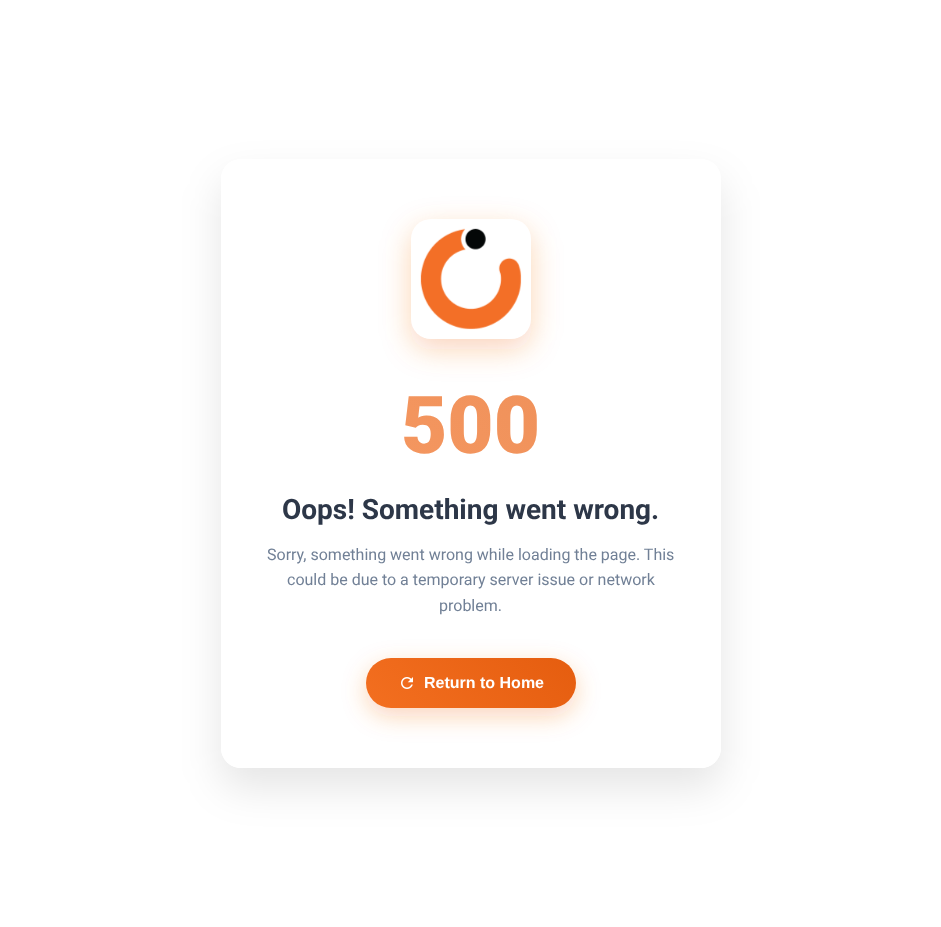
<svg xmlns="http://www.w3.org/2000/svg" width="941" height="927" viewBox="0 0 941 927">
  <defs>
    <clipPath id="clip1"><path d="M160 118H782V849H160ZM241 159H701C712 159 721 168 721 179V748C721 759 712 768 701 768H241C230 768 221 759 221 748V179C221 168 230 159 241 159Z" clip-rule="evenodd"/></clipPath>
    <filter id="blur1" x="-50%" y="-200%" width="200%" height="500%"><feGaussianBlur stdDeviation="20"/></filter>
    <linearGradient id="g1" gradientUnits="userSpaceOnUse" x1="342" y1="554" x2="599" y2="297"><stop offset="0" stop-color="#f79a63"/><stop offset="1" stop-color="#ed8e57"/></linearGradient>
    <filter id="blur2" x="-50%" y="-200%" width="200%" height="500%"><feGaussianBlur stdDeviation="15"/></filter>
    <filter id="blur3" x="-50%" y="-200%" width="200%" height="500%"><feGaussianBlur stdDeviation="12.5"/></filter>
    <linearGradient id="g2" gradientUnits="userSpaceOnUse" x1="406" y1="748" x2="536" y2="618"><stop offset="0" stop-color="#f36f20"/><stop offset="1" stop-color="#e55d0f"/></linearGradient>
  </defs>
  <rect width="100%" height="100%" fill="#ffffff"/>
  <g clip-path="url(#clip1)">
    <rect x="221" y="179" width="500" height="609" rx="20" fill="#000000" fill-opacity="0.1" filter="url(#blur1)"/>
  </g>
  <rect x="221" y="159" width="500" height="609" rx="20" fill="#ffffff" fill-opacity="0.95"/>
  <rect x="411" y="229" width="120" height="120" rx="20" fill="#f36f20" fill-opacity="0.3" filter="url(#blur2)"/>
  <rect x="411" y="219" width="120" height="120" rx="20" fill="#ffffff"/>
  <image x="420" y="228" width="102" height="102" href="img1.png"/>
  <text x="401" y="453" font-family="Roboto" font-size="80" font-weight="900" fill="url(#g1)">500</text>
  <text x="282" y="519" font-family="Roboto" font-size="28" font-weight="bold" fill="#2d3748">Oops! Something went wrong.</text>
  <text x="267" y="560" font-family="Roboto" font-size="16" fill="#718096">Sorry, something went wrong while loading the page. This</text>
  <text x="287" y="585" font-family="Roboto" font-size="16" fill="#718096">could be due to a temporary server issue or network</text>
  <text x="439" y="611" font-family="Roboto" font-size="16" fill="#718096">problem.</text>
  <rect x="366" y="666" width="210" height="50" rx="25" fill="#f36f20" fill-opacity="0.3" filter="url(#blur3)"/>
  <rect x="366" y="658" width="210" height="50" rx="25" fill="url(#g2)"/>
  <image x="401" y="677" width="12" height="12" href="img2.png"/>
  <text x="424" y="688" font-family="Liberation Sans" font-size="16" font-weight="bold" fill="#ffffff">Return to Home</text>
</svg>
